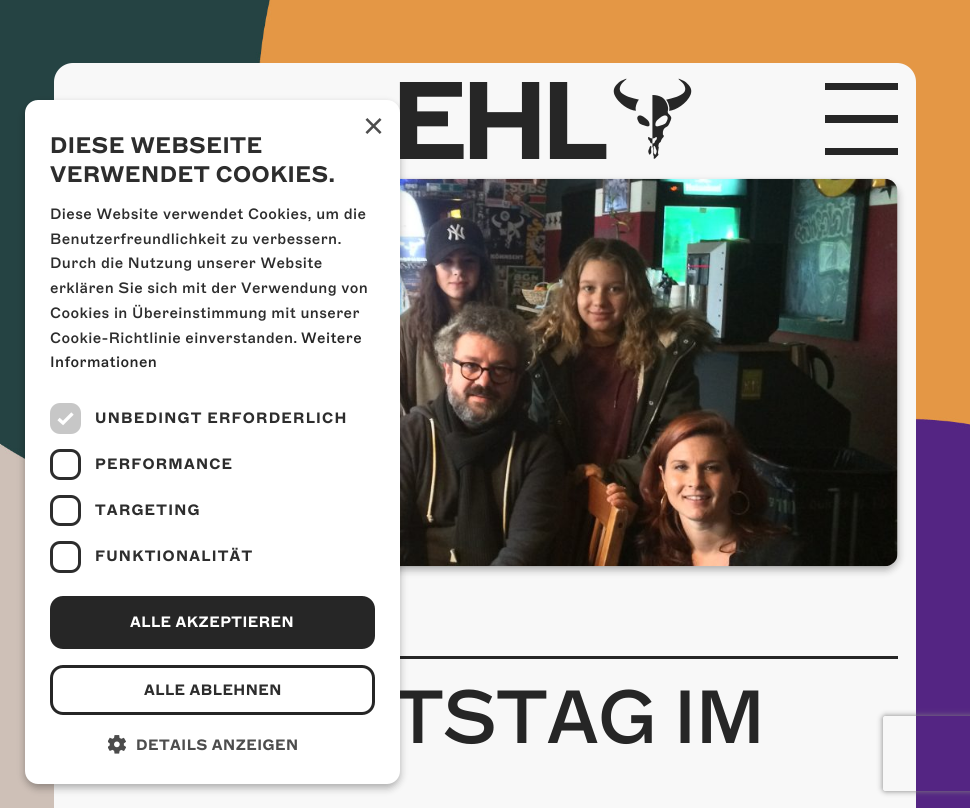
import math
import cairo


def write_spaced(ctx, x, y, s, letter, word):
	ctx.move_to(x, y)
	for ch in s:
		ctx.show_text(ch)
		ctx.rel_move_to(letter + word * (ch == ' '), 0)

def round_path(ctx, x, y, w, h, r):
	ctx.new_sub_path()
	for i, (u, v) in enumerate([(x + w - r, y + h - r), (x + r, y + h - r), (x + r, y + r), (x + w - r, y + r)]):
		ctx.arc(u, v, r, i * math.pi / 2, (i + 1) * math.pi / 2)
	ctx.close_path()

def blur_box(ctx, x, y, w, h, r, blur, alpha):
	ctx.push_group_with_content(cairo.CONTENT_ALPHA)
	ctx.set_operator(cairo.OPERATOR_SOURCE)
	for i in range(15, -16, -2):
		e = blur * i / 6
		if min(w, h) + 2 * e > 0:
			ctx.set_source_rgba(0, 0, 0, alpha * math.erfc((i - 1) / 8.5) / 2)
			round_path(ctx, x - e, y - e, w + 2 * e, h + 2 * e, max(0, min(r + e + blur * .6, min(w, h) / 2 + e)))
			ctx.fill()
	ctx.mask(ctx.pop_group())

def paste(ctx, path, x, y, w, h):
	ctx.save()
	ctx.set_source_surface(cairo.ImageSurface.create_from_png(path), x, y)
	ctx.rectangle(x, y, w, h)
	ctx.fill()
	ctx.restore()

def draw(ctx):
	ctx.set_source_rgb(1, 1, 1)
	ctx.paint()
	paste(ctx, 'media/1.png', 0, 0, 970, 808)
	ctx.set_source_rgb(0.969, 0.969, 0.969)
	ctx.new_path()
	ctx.move_to(73, 63)
	ctx.line_to(897, 63)
	ctx.curve_to(907.5, 63, 916, 71.5, 916, 82)
	ctx.line_to(916, 179)
	ctx.line_to(54, 179)
	ctx.line_to(54, 82)
	ctx.curve_to(54, 71.5, 62.5, 63, 73, 63)
	ctx.close_path()
	ctx.fill()
	ctx.rectangle(54, 179, 862, 629)
	ctx.fill()
	ctx.set_source_rgb(0, 0, 0)
	blur_box(ctx, 73, 183, 825, 387, 13, 4, 0.3)
	paste(ctx, 'media/4.png', 400, 178, 498, 389)
	ctx.set_source_rgb(0.149, 0.149, 0.149)
	ctx.rectangle(400, 656, 498, 3)
	ctx.fill()
	ctx.set_source_rgb(0, 0, 0)
	blur_box(ctx, 25, 104, 375, 684, 13, 4, 0.3)
	ctx.select_font_face('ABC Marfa', cairo.FONT_SLANT_NORMAL, cairo.FONT_WEIGHT_BOLD)
	ctx.set_font_size(110)
	ctx.set_source_rgb(0.149, 0.149, 0.149)
	write_spaced(ctx, 391, 159, 'EHL', -7, 0)
	ctx.select_font_face('ABC Marfa Medium')
	ctx.set_font_size(75)
	write_spaced(ctx, 392, 743, 'TSTAG IM', -1.25, 0)
	ctx.set_source_rgb(1, 1, 1)
	round_path(ctx, 25, 100, 375, 684, 13)
	ctx.fill()
	ctx.select_font_face('Liberation Sans')
	ctx.set_font_size(36)
	ctx.set_source_rgb(0.302, 0.302, 0.302)
	ctx.move_to(363, 138)
	ctx.show_text('×')
	ctx.select_font_face('ABC Marfa', cairo.FONT_SLANT_NORMAL, cairo.FONT_WEIGHT_BOLD)
	ctx.set_font_size(22.5)
	ctx.set_source_rgb(0.176, 0.176, 0.176)
	write_spaced(ctx, 50, 153, 'DIESE WEBSEITE', 0.5, 0)
	write_spaced(ctx, 50, 182, 'VERWENDET COOKIES.', 0.5, 0)
	ctx.select_font_face('ABC Marfa Medium')
	ctx.set_font_size(15)
	for x, y, s in [
		(50, 219, 'Diese Website verwendet Cookies, um die'),
		(50, 244, 'Benutzerfreundlichkeit zu verbessern.'),
		(50, 268, 'Durch die Nutzung unserer Website'),
		(50, 293, 'erklären Sie sich mit der Verwendung von'),
		(50, 318, 'Cookies in Übereinstimmung mit unserer'),
		(50, 343, 'Cookie-Richtlinie einverstanden.'),
	]:
		write_spaced(ctx, x, y, s, 0.4, 0)
	ctx.set_source_rgb(0.149, 0.149, 0.149)
	write_spaced(ctx, 301, 343, 'Weitere', 0.4, 0)
	write_spaced(ctx, 50, 367, 'Informationen', 0.4, 0)
	ctx.set_source_rgb(0.78, 0.78, 0.78)
	round_path(ctx, 50, 403, 31, 31, 10)
	ctx.fill()
	ctx.new_path()
	ctx.move_to(58.5, 419)
	ctx.line_to(63, 423)
	ctx.line_to(72.5, 413.5)
	ctx.set_source_rgb(1, 1, 1)
	ctx.set_line_width(3.3)
	ctx.stroke()
	ctx.select_font_face('ABC Marfa', cairo.FONT_SLANT_NORMAL, cairo.FONT_WEIGHT_BOLD)
	ctx.set_source_rgb(0.176, 0.176, 0.176)
	write_spaced(ctx, 95, 423, 'UNBEDINGT ERFORDERLICH', 1.25, 0)
	round_path(ctx, 51.5, 450.5, 28, 28, 8.5)
	ctx.set_line_width(3)
	ctx.stroke()
	write_spaced(ctx, 95, 469, 'PERFORMANCE', 1.25, 0)
	round_path(ctx, 51.5, 496.5, 28, 28, 8.5)
	ctx.stroke()
	write_spaced(ctx, 95, 515, 'TARGETING', 1.25, 0)
	round_path(ctx, 51.5, 542.5, 28, 29, 8.5)
	ctx.stroke()
	write_spaced(ctx, 95, 561, 'FUNKTIONALITÄT', 1.25, 0)
	ctx.set_source_rgb(0.149, 0.149, 0.149)
	round_path(ctx, 51.5, 597.5, 322, 50, 11.5)
	ctx.fill_preserve()
	ctx.stroke()
	ctx.set_source_rgb(1, 1, 1)
	write_spaced(ctx, 130, 627, 'ALLE AKZEPTIEREN', 0.5, 0)
	round_path(ctx, 51.5, 666.5, 322, 47, 11.5)
	ctx.set_source_rgb(0.149, 0.149, 0.149)
	ctx.stroke()
	ctx.set_source_rgb(0.176, 0.176, 0.176)
	write_spaced(ctx, 144, 695, 'ALLE ABLEHNEN', 0.5, 0)
	paste(ctx, 'media/2.png', 108, 735, 18, 19)
	ctx.set_source_rgb(0.302, 0.302, 0.302)
	write_spaced(ctx, 136, 750, 'DETAILS ANZEIGEN', 0.5, 0)
	paste(ctx, 'media/3.png', 613, 78, 79, 81)
	ctx.set_source_rgb(0.149, 0.149, 0.149)
	ctx.rectangle(825, 115, 73, 8)
	ctx.rectangle(825, 83, 73, 7)
	ctx.rectangle(825, 148, 73, 7)
	ctx.fill()
	ctx.save()
	ctx.set_fill_rule(cairo.FILL_RULE_EVEN_ODD)
	ctx.new_path()
	ctx.move_to(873, 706)
	ctx.line_to(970, 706)
	ctx.line_to(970, 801)
	ctx.line_to(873, 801)
	ctx.close_path()
	ctx.move_to(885.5, 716)
	ctx.line_to(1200.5, 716)
	ctx.curve_to(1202, 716, 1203, 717, 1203, 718.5)
	ctx.line_to(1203, 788.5)
	ctx.curve_to(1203, 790, 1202, 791, 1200.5, 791)
	ctx.line_to(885.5, 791)
	ctx.curve_to(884, 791, 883, 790, 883, 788.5)
	ctx.line_to(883, 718.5)
	ctx.curve_to(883, 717, 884, 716, 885.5, 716)
	ctx.close_path()
	ctx.clip()
	ctx.set_source_rgb(0.502, 0.502, 0.502)
	blur_box(ctx, 883, 716, 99, 75, 2.5, 3, 1)
	ctx.restore()


surface = cairo.ImageSurface(cairo.FORMAT_RGB24, 970, 808)
ctx = cairo.Context(surface)
options = cairo.FontOptions()
options.set_hint_metrics(cairo.HINT_METRICS_OFF)
options.set_hint_style(cairo.HINT_STYLE_NONE)
ctx.set_font_options(options)
ctx.set_miter_limit(4)
draw(ctx)
surface.write_to_png('image.png')
